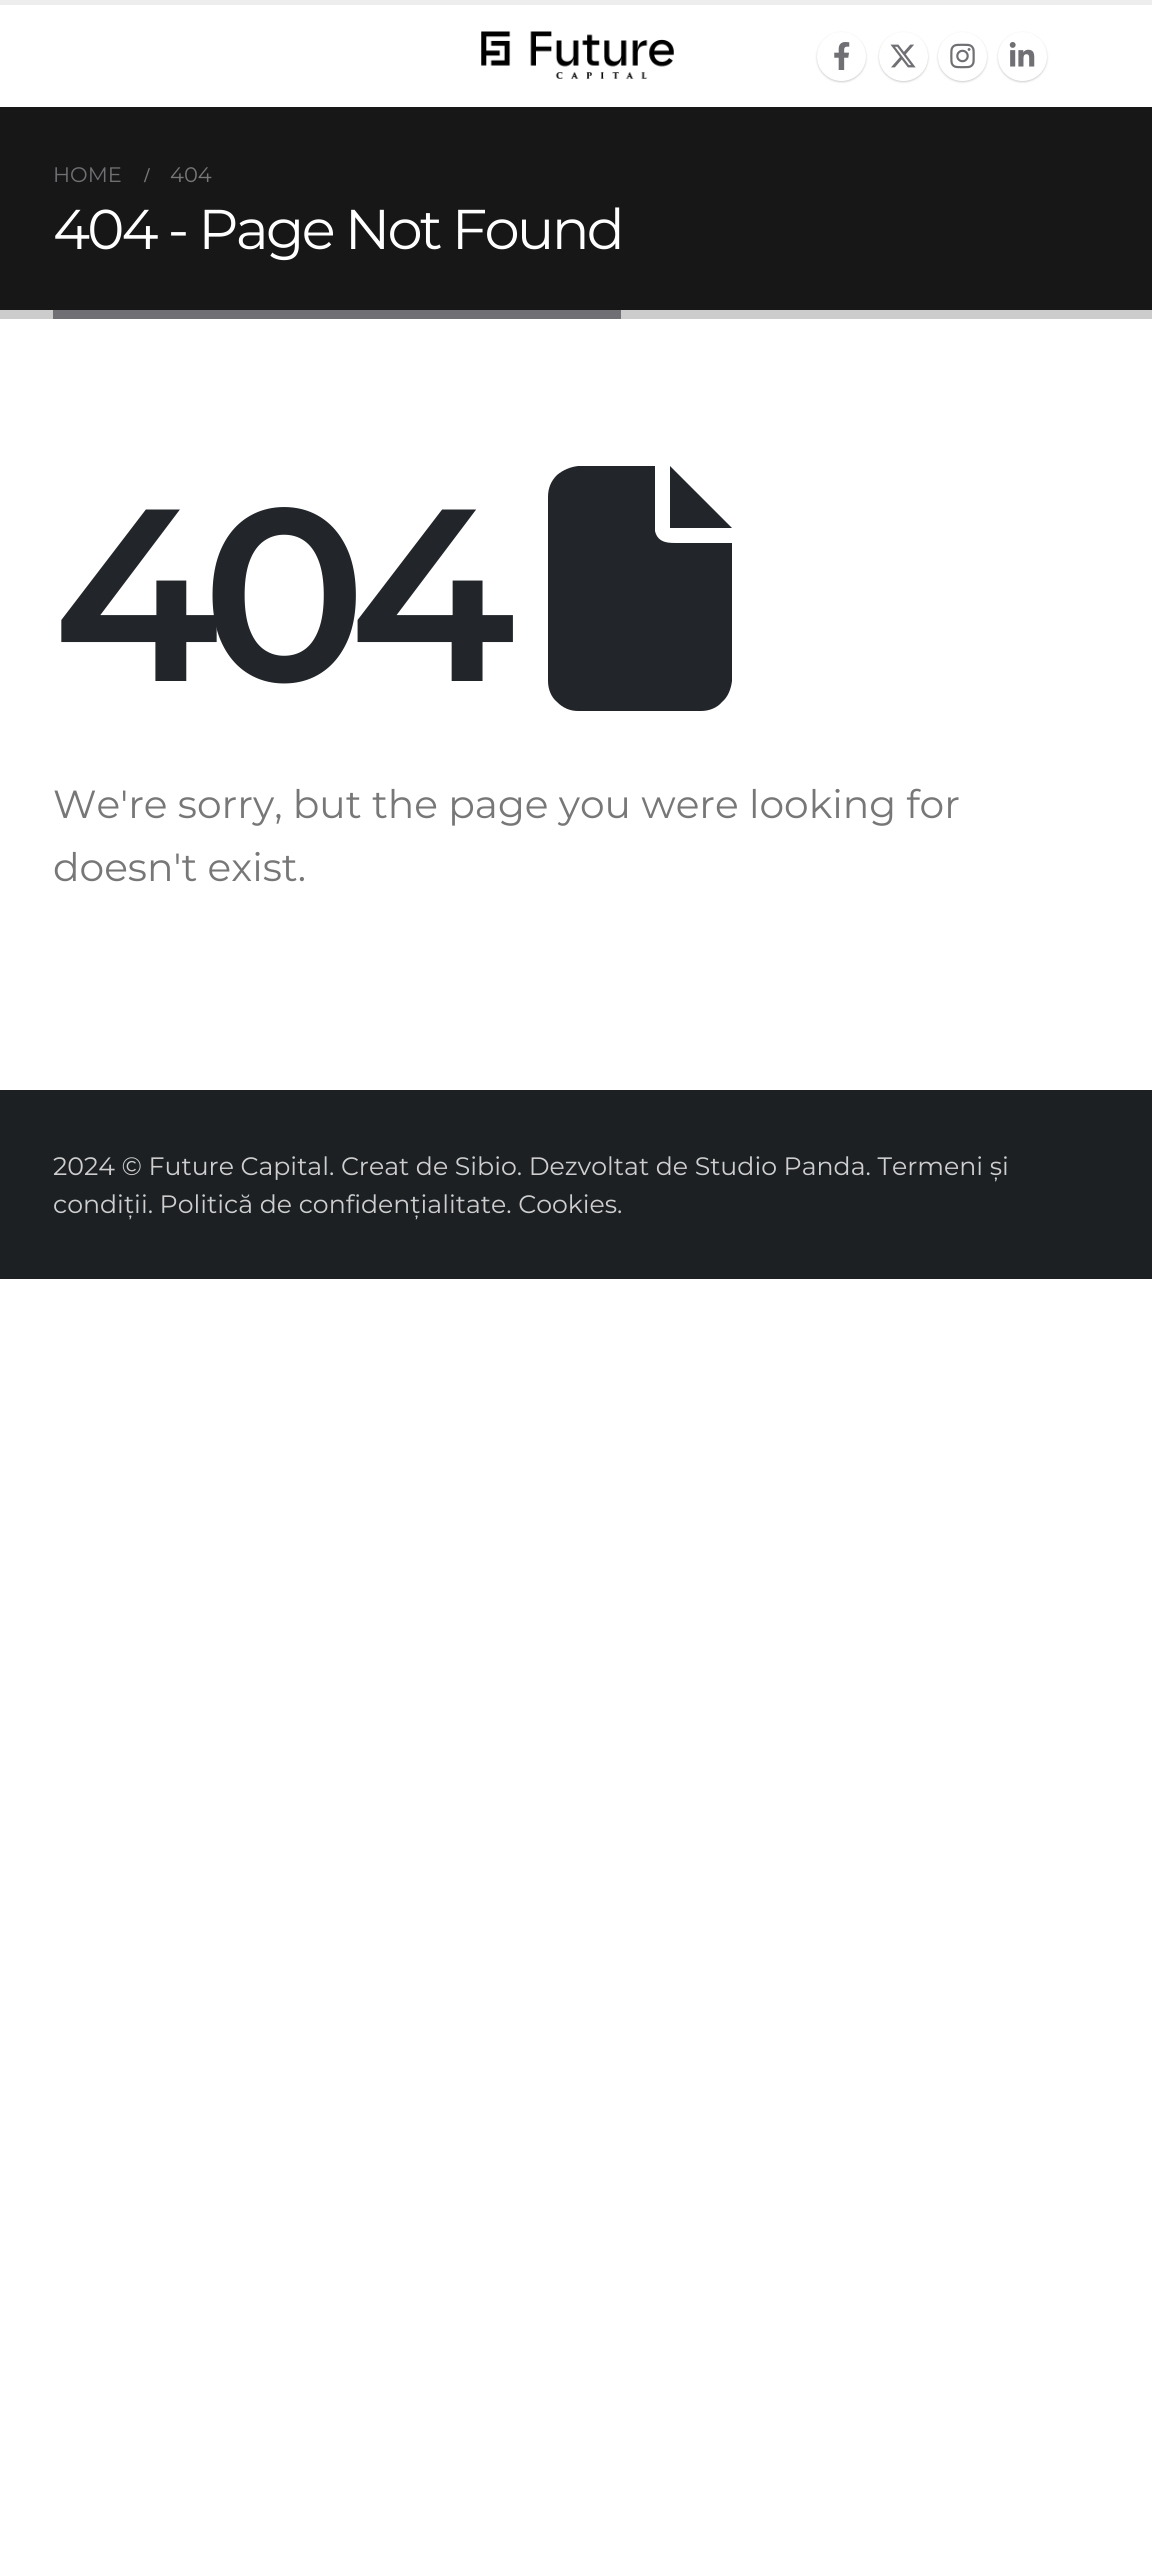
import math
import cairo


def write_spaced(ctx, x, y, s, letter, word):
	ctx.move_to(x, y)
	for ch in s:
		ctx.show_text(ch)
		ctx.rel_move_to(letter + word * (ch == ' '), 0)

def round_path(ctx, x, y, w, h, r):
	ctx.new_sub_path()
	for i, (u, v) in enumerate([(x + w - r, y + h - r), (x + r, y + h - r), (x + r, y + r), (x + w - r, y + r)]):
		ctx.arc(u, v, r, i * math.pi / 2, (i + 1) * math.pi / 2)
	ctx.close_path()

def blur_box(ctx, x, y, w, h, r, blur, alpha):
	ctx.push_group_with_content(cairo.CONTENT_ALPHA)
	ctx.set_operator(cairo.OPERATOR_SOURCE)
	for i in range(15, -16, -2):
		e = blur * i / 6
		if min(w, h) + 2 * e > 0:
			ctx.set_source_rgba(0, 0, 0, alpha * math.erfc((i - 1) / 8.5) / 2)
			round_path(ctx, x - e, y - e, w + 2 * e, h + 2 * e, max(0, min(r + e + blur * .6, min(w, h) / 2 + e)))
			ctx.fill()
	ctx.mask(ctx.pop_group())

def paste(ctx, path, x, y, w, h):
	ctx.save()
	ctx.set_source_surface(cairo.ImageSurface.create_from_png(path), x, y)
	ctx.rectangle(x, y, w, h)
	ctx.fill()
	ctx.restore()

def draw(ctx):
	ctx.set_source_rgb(1, 1, 1)
	ctx.paint()
	ctx.set_source_rgb(0.929, 0.929, 0.929)
	ctx.rectangle(0, 0, 1152, 5)
	ctx.fill()
	paste(ctx, 'media/1.png', 481, 31, 193, 48)
	ctx.set_source_rgb(0, 0, 0)
	blur_box(ctx, 817, 33, 49, 49, 24.5, 1, 0.2)
	ctx.set_source_rgb(1, 1, 1)
	ctx.arc(841.5, 56.5, 24.5, 0, 2 * math.pi)
	ctx.fill()
	paste(ctx, 'media/2.png', 834, 42, 16, 28)
	ctx.set_source_rgb(0, 0, 0)
	blur_box(ctx, 879, 33, 49, 49, 24.5, 1, 0.2)
	ctx.set_source_rgb(1, 1, 1)
	ctx.arc(903.5, 56.5, 24.5, 0, 2 * math.pi)
	ctx.fill()
	paste(ctx, 'media/3.png', 890, 44, 26, 24)
	ctx.set_source_rgb(0, 0, 0)
	blur_box(ctx, 938, 33, 49, 49, 24.5, 1, 0.2)
	ctx.set_source_rgb(1, 1, 1)
	ctx.arc(962.5, 56.5, 24.5, 0, 2 * math.pi)
	ctx.fill()
	paste(ctx, 'media/4.png', 950, 43, 25, 26)
	ctx.set_source_rgb(0, 0, 0)
	blur_box(ctx, 998, 33, 49, 49, 24.5, 1, 0.2)
	ctx.set_source_rgb(1, 1, 1)
	ctx.arc(1022.5, 56.5, 24.5, 0, 2 * math.pi)
	ctx.fill()
	paste(ctx, 'media/5.png', 1009, 42, 26, 25)
	ctx.set_source_rgb(0.09, 0.09, 0.09)
	ctx.rectangle(0, 107, 1152, 203)
	ctx.fill()
	ctx.set_source_rgb(0.8, 0.8, 0.8)
	ctx.rectangle(0, 310, 1152, 9)
	ctx.fill()
	ctx.select_font_face('Montserrat')
	ctx.set_font_size(21)
	ctx.set_source_rgb(0.439, 0.435, 0.451)
	ctx.move_to(53, 182)
	ctx.show_text('HOME')
	ctx.select_font_face('Liberation Serif', cairo.FONT_SLANT_NORMAL, cairo.FONT_WEIGHT_BOLD)
	ctx.set_source_rgb(0.467, 0.467, 0.467)
	ctx.move_to(144, 182)
	ctx.show_text('/')
	ctx.select_font_face('Montserrat')
	ctx.move_to(170, 182)
	ctx.show_text('404')
	ctx.set_font_size(56)
	ctx.set_source_rgb(1, 1, 1)
	write_spaced(ctx, 53, 249, '404 - Page Not Found', -2.75, 0)
	ctx.set_source_rgb(0.439, 0.435, 0.451)
	ctx.rectangle(53, 310, 568, 9)
	ctx.fill()
	ctx.select_font_face('Montserrat SemiBold')
	ctx.set_font_size(245)
	ctx.set_source_rgb(0.133, 0.145, 0.161)
	write_spaced(ctx, 53, 681, '404', -17.5, 0)
	ctx.new_path()
	ctx.move_to(548, 497)
	ctx.curve_to(548, 488, 551, 481, 557, 475)
	ctx.curve_to(563, 470, 570, 467, 578, 466)
	ctx.line_to(655, 466)
	ctx.line_to(655, 531)
	ctx.curve_to(658, 544, 670, 543, 680, 543)
	ctx.line_to(732, 543)
	ctx.line_to(732, 681)
	ctx.curve_to(731, 689, 728, 697, 722, 702)
	ctx.curve_to(717, 708, 709, 711, 701, 711)
	ctx.line_to(578, 711)
	ctx.curve_to(570, 711, 563, 708, 557, 702)
	ctx.curve_to(551, 697, 548, 689, 548, 681)
	ctx.close_path()
	ctx.move_to(732, 528)
	ctx.line_to(670, 528)
	ctx.line_to(670, 466)
	ctx.close_path()
	ctx.fill()
	ctx.select_font_face('Montserrat')
	ctx.set_font_size(39.2)
	ctx.set_source_rgb(0.467, 0.467, 0.467)
	ctx.move_to(53, 818)
	ctx.show_text('We\'re sorry, but the page you were looking for')
	ctx.move_to(53, 881)
	ctx.show_text('doesn\'t exist.')
	ctx.set_source_rgb(0.11, 0.125, 0.137)
	ctx.rectangle(0, 1090, 1152, 189)
	ctx.fill()
	ctx.set_font_size(25.2)
	ctx.set_source_rgb(0.808, 0.808, 0.808)
	ctx.move_to(53, 1175)
	ctx.show_text('2024 © Future Capital. Creat de Sibio. Dezvoltat de Studio Panda. Termeni și')
	ctx.move_to(53, 1213)
	ctx.show_text('condiții. Politică de confidențialitate. Cookies.')


surface = cairo.ImageSurface(cairo.FORMAT_RGB24, 1152, 2556)
ctx = cairo.Context(surface)
options = cairo.FontOptions()
options.set_hint_metrics(cairo.HINT_METRICS_OFF)
options.set_hint_style(cairo.HINT_STYLE_NONE)
ctx.set_font_options(options)
ctx.set_miter_limit(4)
draw(ctx)
surface.write_to_png('image.png')
